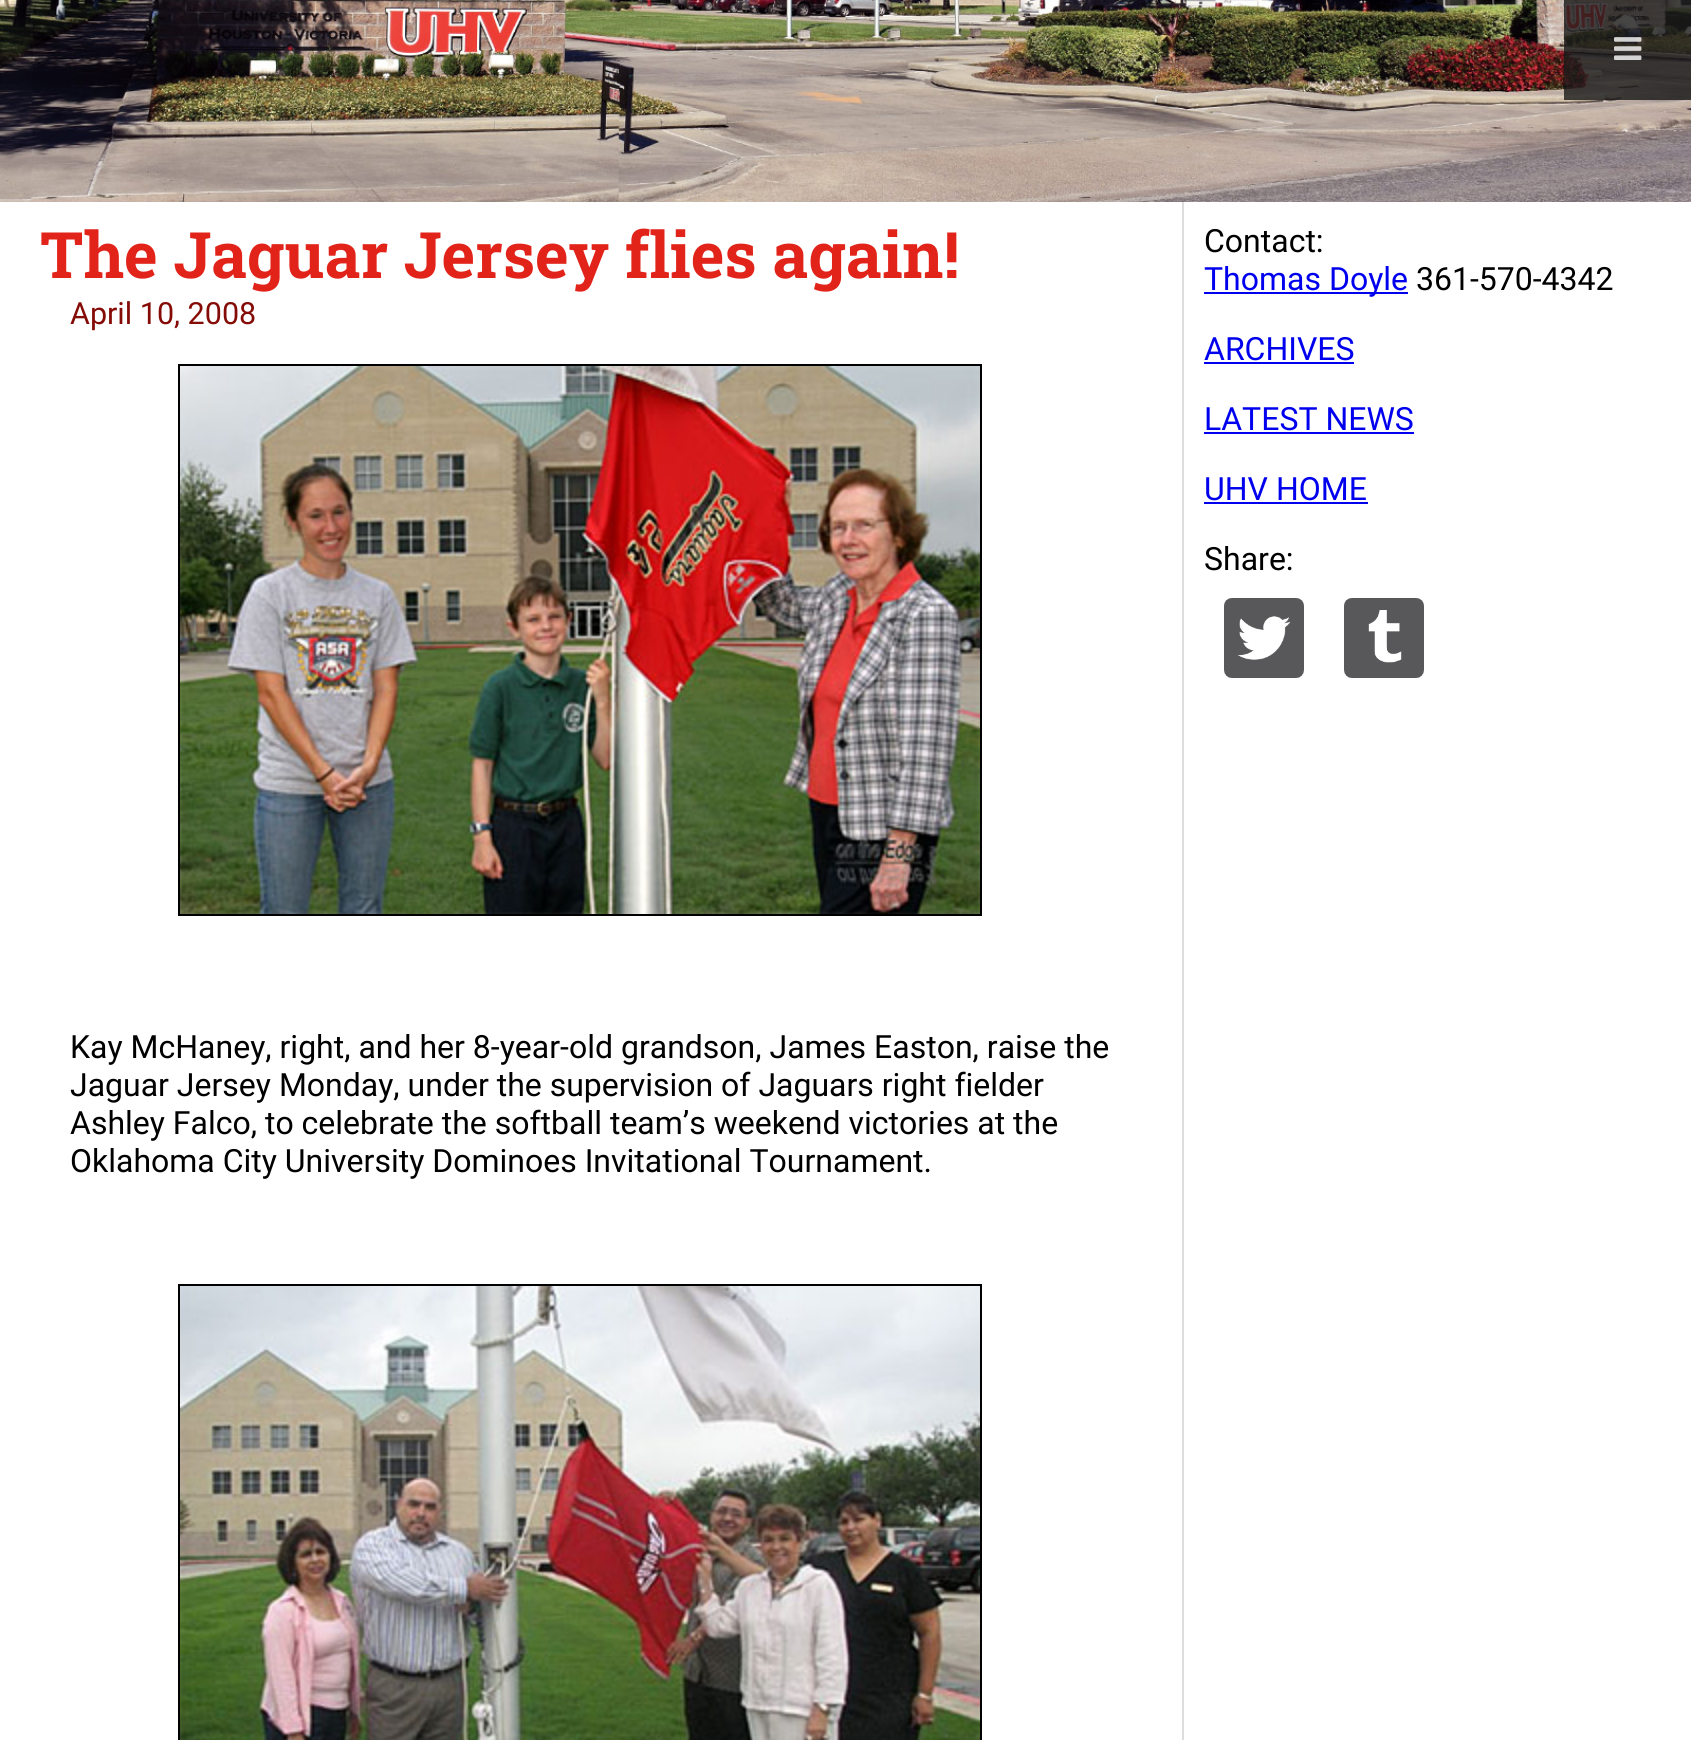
import math
import cairo


def paste(ctx, path, x, y, w, h):
	ctx.save()
	ctx.set_source_surface(cairo.ImageSurface.create_from_png(path), x, y)
	ctx.rectangle(x, y, w, h)
	ctx.fill()
	ctx.restore()

def draw(ctx):
	ctx.set_source_rgb(1, 1, 1)
	ctx.paint()
	paste(ctx, 'media/2.png', 0, 0, 1691, 202)
	ctx.set_source_rgba(0.102, 0.102, 0.102, 0.8)
	ctx.rectangle(1564, 0, 127, 100)
	ctx.fill()
	paste(ctx, 'media/1.png', 1614, 37, 28, 23)
	ctx.set_source_rgb(0.867, 0.867, 0.867)
	ctx.rectangle(1182, 202, 2, 1538)
	ctx.fill()
	ctx.select_font_face('Roboto Slab', cairo.FONT_SLANT_NORMAL, cairo.FONT_WEIGHT_BOLD)
	ctx.set_font_size(64)
	ctx.set_source_rgb(0.886, 0.137, 0.102)
	ctx.move_to(40, 278)
	ctx.show_text('The Jaguar Jersey flies again!')
	ctx.select_font_face('Roboto')
	ctx.set_font_size(30.5)
	ctx.set_source_rgb(0.522, 0.047, 0.024)
	ctx.move_to(70, 324)
	ctx.show_text('April 10, 2008')
	ctx.rectangle(179, 365, 802, 550)
	ctx.set_source_rgb(0, 0, 0)
	ctx.stroke()
	paste(ctx, 'media/3.png', 180, 366, 800, 548)
	ctx.set_font_size(32)
	for x, y, s in [
		(70, 1058, 'Kay McHaney, right, and her 8-year-old grandson, James Easton, raise the'),
		(70, 1096, 'Jaguar Jersey Monday, under the supervision of Jaguars right fielder'),
		(70, 1134, 'Ashley Falco, to celebrate the softball team’s weekend victories at the'),
		(70, 1172, 'Oklahoma City University Dominoes Invitational Tournament.'),
	]:
		ctx.move_to(x, y)
		ctx.show_text(s)
	ctx.rectangle(179, 1285, 802, 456)
	ctx.stroke()
	paste(ctx, 'media/4.png', 180, 1286, 800, 454)
	ctx.move_to(1204, 252)
	ctx.show_text('Contact:')
	ctx.set_source_rgb(0, 0, 0.933)
	ctx.rectangle(1204, 292, 204, 2)
	ctx.fill()
	ctx.move_to(1204, 290)
	ctx.show_text('Thomas Doyle')
	ctx.set_source_rgb(0, 0, 0)
	ctx.move_to(1416, 290)
	ctx.show_text('361-570-4342')
	ctx.set_source_rgb(0, 0, 0.933)
	ctx.move_to(1204, 360)
	ctx.show_text('ARCHIVES')
	ctx.rectangle(1204, 362, 150, 2)
	ctx.fill()
	ctx.move_to(1204, 430)
	ctx.show_text('LATEST NEWS')
	ctx.rectangle(1204, 432, 210, 2)
	ctx.fill()
	ctx.move_to(1204, 500)
	ctx.show_text('UHV HOME')
	ctx.rectangle(1204, 502, 164, 2)
	ctx.fill()
	ctx.set_source_rgb(0, 0, 0)
	ctx.move_to(1204, 570)
	ctx.show_text('Share:')
	paste(ctx, 'media/5.png', 1224, 598, 80, 80)
	paste(ctx, 'media/6.png', 1344, 598, 80, 80)


surface = cairo.ImageSurface(cairo.FORMAT_RGB24, 1691, 1740)
ctx = cairo.Context(surface)
options = cairo.FontOptions()
options.set_hint_metrics(cairo.HINT_METRICS_OFF)
options.set_hint_style(cairo.HINT_STYLE_NONE)
ctx.set_font_options(options)
ctx.set_miter_limit(4)
draw(ctx)
surface.write_to_png('image.png')
